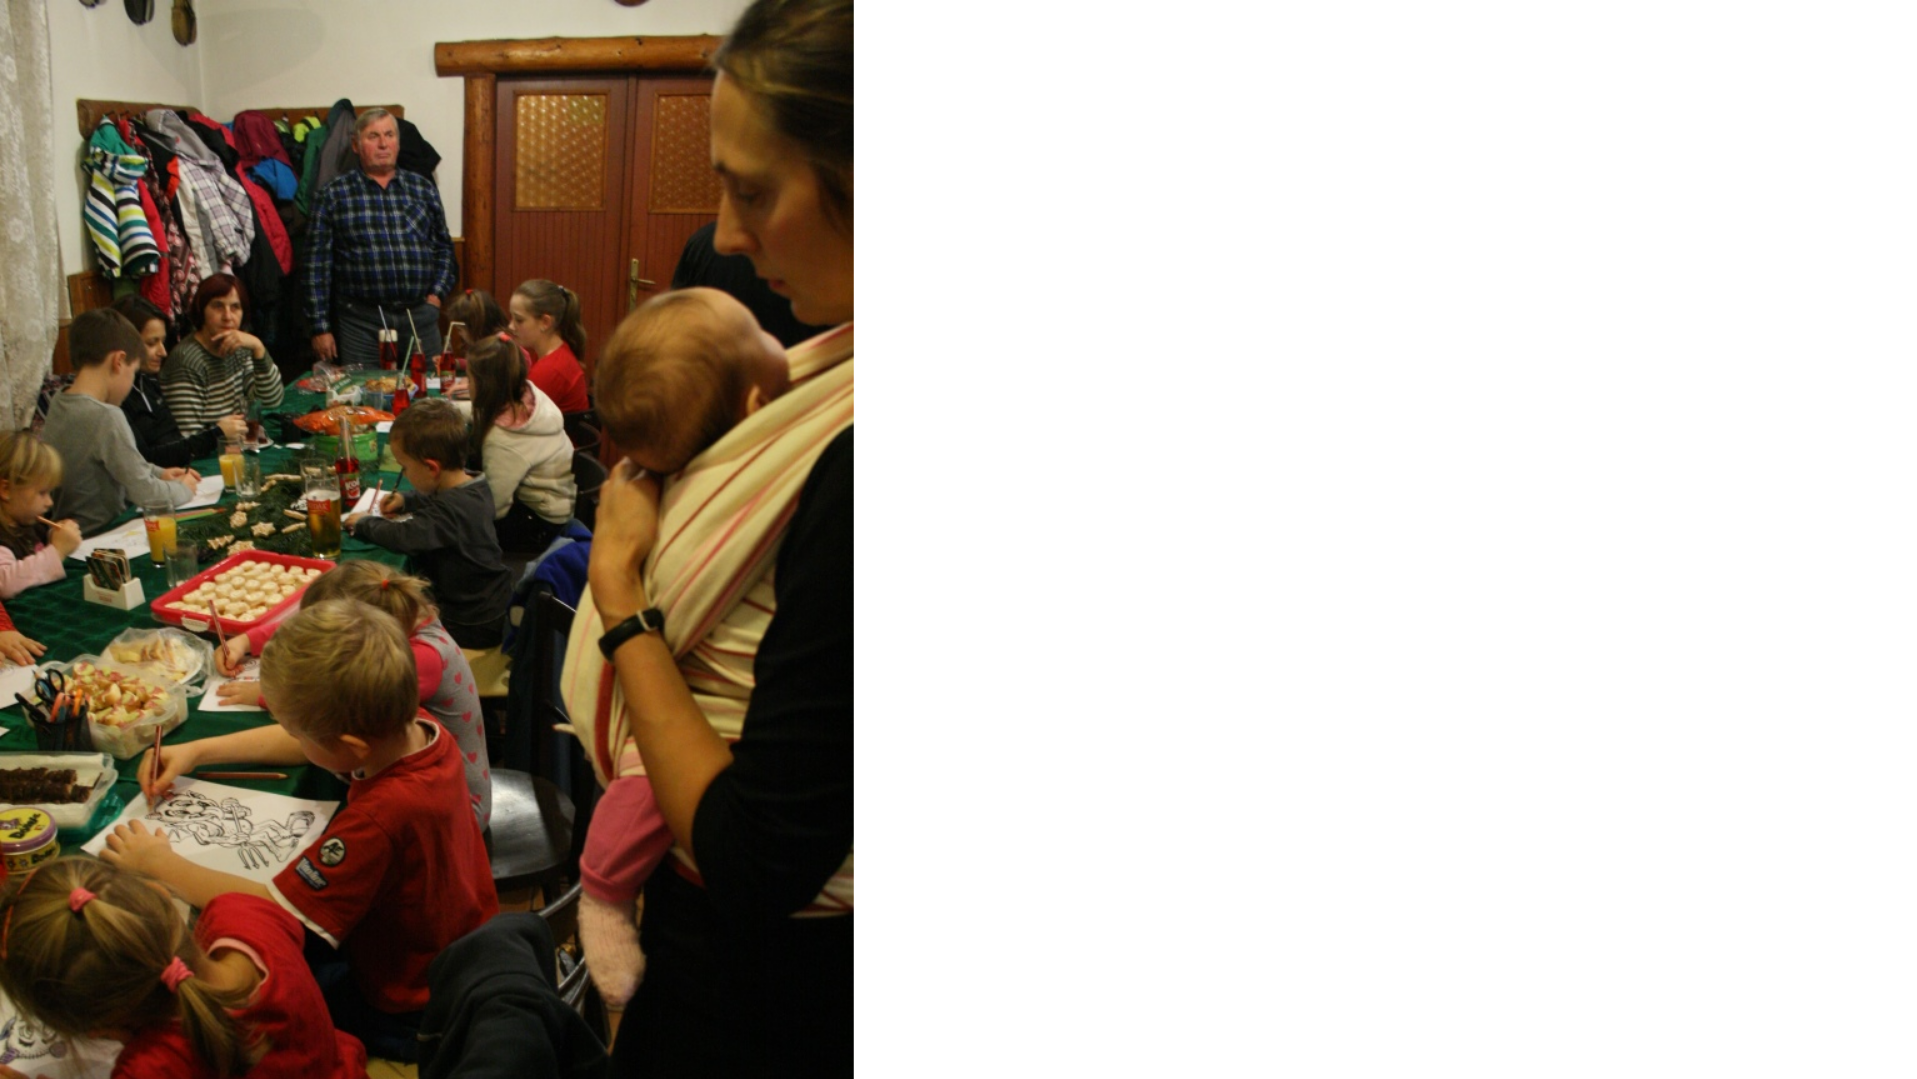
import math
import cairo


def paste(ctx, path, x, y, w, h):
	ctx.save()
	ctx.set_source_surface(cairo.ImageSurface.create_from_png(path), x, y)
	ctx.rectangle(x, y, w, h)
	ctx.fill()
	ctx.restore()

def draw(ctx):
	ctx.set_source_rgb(1, 1, 1)
	ctx.paint()
	paste(ctx, 'media/1.png', 0, 0, 854, 1079)


surface = cairo.ImageSurface(cairo.FORMAT_RGB24, 1917, 1079)
ctx = cairo.Context(surface)
options = cairo.FontOptions()
options.set_hint_metrics(cairo.HINT_METRICS_OFF)
options.set_hint_style(cairo.HINT_STYLE_NONE)
ctx.set_font_options(options)
ctx.set_miter_limit(4)
draw(ctx)
surface.write_to_png('image.png')
